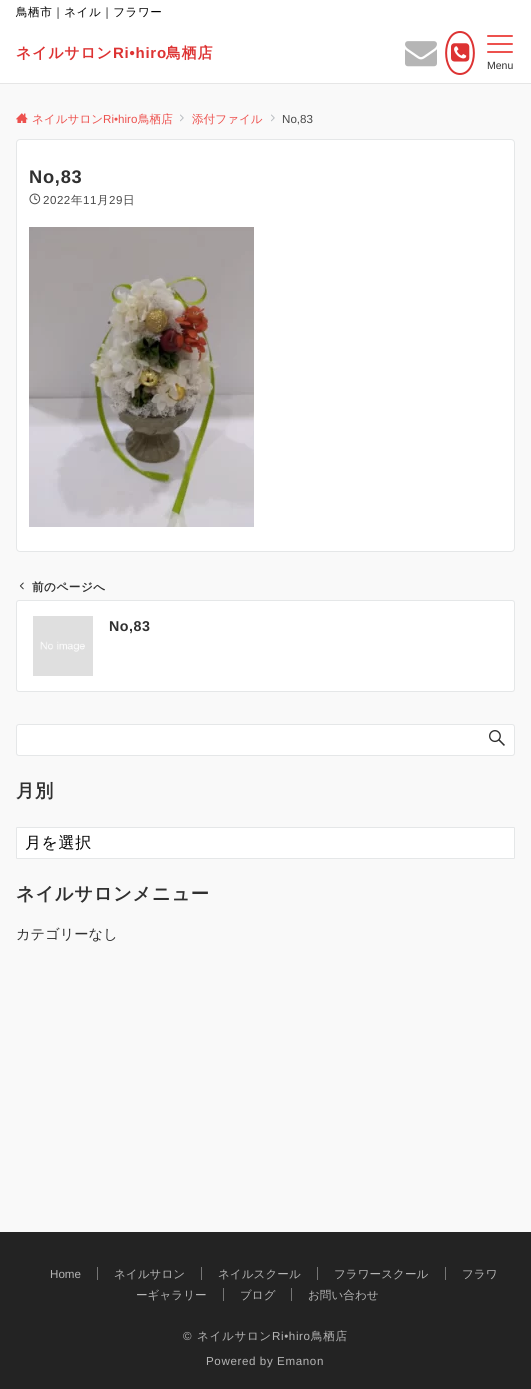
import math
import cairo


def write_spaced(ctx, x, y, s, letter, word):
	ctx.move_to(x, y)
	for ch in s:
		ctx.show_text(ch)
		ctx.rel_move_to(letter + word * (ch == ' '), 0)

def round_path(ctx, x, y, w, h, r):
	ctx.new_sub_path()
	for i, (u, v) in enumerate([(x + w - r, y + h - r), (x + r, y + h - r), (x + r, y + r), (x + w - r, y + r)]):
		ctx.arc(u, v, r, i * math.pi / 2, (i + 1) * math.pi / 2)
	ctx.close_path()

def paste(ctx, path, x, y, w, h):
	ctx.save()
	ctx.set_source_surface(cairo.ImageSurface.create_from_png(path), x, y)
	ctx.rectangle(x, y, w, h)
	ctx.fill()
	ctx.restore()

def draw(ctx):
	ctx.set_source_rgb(0.973, 0.973, 0.973)
	ctx.paint()
	ctx.set_source_rgb(1, 1, 1)
	ctx.rectangle(0, 0, 531, 83)
	ctx.fill()
	ctx.select_font_face('WenQuanYi Zen Hei Medium')
	ctx.set_font_size(11.6)
	ctx.set_source_rgb(0, 0, 0)
	write_spaced(ctx, 16, 16, '鳥栖市｜ネイル｜フラワー', 0.5, 0)
	ctx.set_source_rgb(0.902, 0.902, 0.902)
	ctx.rectangle(0, 83, 531, 1)
	ctx.fill()
	ctx.select_font_face('WenQuanYi Zen Hei', cairo.FONT_SLANT_NORMAL, cairo.FONT_WEIGHT_BOLD)
	ctx.set_font_size(15)
	ctx.set_source_rgb(0.867, 0.2, 0.2)
	write_spaced(ctx, 16, 58, 'ネイルサロン', 0.75, 0)
	ctx.select_font_face('Liberation Sans', cairo.FONT_SLANT_NORMAL, cairo.FONT_WEIGHT_BOLD)
	write_spaced(ctx, 113, 58, 'Ri•hiro', 0.75, 0)
	ctx.select_font_face('WenQuanYi Zen Hei', cairo.FONT_SLANT_NORMAL, cairo.FONT_WEIGHT_BOLD)
	write_spaced(ctx, 166, 58, '鳥栖店', 0.75, 0)
	paste(ctx, 'media/1.png', 405, 41, 32, 26)
	ctx.new_path()
	ctx.move_to(460, 32)
	ctx.curve_to(478.5, 32, 478.5, 74, 460, 74)
	ctx.curve_to(441.5, 74, 441.5, 32, 460, 32)
	ctx.close_path()
	ctx.stroke()
	paste(ctx, 'media/2.png', 451, 43, 19, 19)
	ctx.set_source_rgb(0.929, 0.318, 0.306)
	round_path(ctx, 487, 35, 26, 2, 1)
	ctx.fill()
	round_path(ctx, 487, 43, 26, 2, 1)
	ctx.fill()
	round_path(ctx, 487, 51, 26, 2, 1)
	ctx.fill()
	ctx.select_font_face('Liberation Sans')
	ctx.set_font_size(10.5)
	ctx.set_source_rgb(0.188, 0.188, 0.188)
	ctx.move_to(487, 69)
	ctx.show_text('Menu')
	paste(ctx, 'media/3.png', 16, 113, 12, 10)
	ctx.select_font_face('WenQuanYi Zen Hei Medium')
	ctx.set_font_size(11.6)
	ctx.set_source_rgb(0.929, 0.318, 0.306)
	ctx.move_to(32, 123)
	ctx.show_text('ネイルサロン')
	ctx.select_font_face('Liberation Sans')
	ctx.move_to(103, 123)
	ctx.show_text('Ri•hiro')
	ctx.select_font_face('WenQuanYi Zen Hei Medium')
	ctx.move_to(138, 123)
	ctx.show_text('鳥栖店')
	paste(ctx, 'media/4.png', 180, 114, 4, 8)
	ctx.move_to(192, 123)
	ctx.show_text('添付ファイル')
	paste(ctx, 'media/4.png', 271, 114, 4, 8)
	ctx.select_font_face('Liberation Sans')
	ctx.set_source_rgb(0.282, 0.282, 0.282)
	ctx.move_to(282, 123)
	ctx.show_text('No,83')
	ctx.set_source_rgb(1, 1, 1)
	round_path(ctx, 16.5, 139.5, 498, 412, 3.5)
	ctx.fill_preserve()
	ctx.set_source_rgb(0.898, 0.906, 0.91)
	ctx.set_line_width(1)
	ctx.stroke()
	ctx.select_font_face('Liberation Sans', cairo.FONT_SLANT_NORMAL, cairo.FONT_WEIGHT_BOLD)
	ctx.set_font_size(18.25)
	ctx.set_source_rgb(0.188, 0.188, 0.188)
	write_spaced(ctx, 29, 183, 'No,83', 0.75, 0)
	paste(ctx, 'media/5.png', 29, 193, 12, 12)
	ctx.select_font_face('Liberation Sans')
	ctx.set_font_size(11.6)
	ctx.set_source_rgb(0.282, 0.282, 0.282)
	write_spaced(ctx, 43, 204, '2022', 0.5, 0)
	ctx.select_font_face('WenQuanYi Zen Hei Medium')
	write_spaced(ctx, 71, 204, '年', 0.5, 0)
	ctx.select_font_face('Liberation Sans')
	write_spaced(ctx, 83, 204, '11', 0.5, 0)
	ctx.select_font_face('WenQuanYi Zen Hei Medium')
	write_spaced(ctx, 97, 204, '月', 0.5, 0)
	ctx.select_font_face('Liberation Sans')
	write_spaced(ctx, 109, 204, '29', 0.5, 0)
	ctx.select_font_face('WenQuanYi Zen Hei Medium')
	write_spaced(ctx, 123, 204, '日', 0.5, 0)
	paste(ctx, 'media/6.png', 29, 227, 225, 300)
	ctx.set_source_rgb(1, 1, 1)
	round_path(ctx, 16.5, 600.5, 498, 91, 2.5)
	ctx.fill_preserve()
	ctx.set_source_rgb(0.898, 0.906, 0.91)
	ctx.stroke()
	paste(ctx, 'media/7.png', 19, 582, 5, 8)
	ctx.select_font_face('WenQuanYi Zen Hei', cairo.FONT_SLANT_NORMAL, cairo.FONT_WEIGHT_BOLD)
	ctx.set_source_rgb(0.188, 0.188, 0.188)
	write_spaced(ctx, 32, 591, '前のページへ', 0.5, 0)
	paste(ctx, 'media/8.png', 33, 616, 60, 60)
	ctx.select_font_face('Liberation Sans', cairo.FONT_SLANT_NORMAL, cairo.FONT_WEIGHT_BOLD)
	ctx.set_font_size(14.25)
	write_spaced(ctx, 109, 631, 'No,83', 0.5, 0)
	ctx.set_source_rgb(1, 1, 1)
	round_path(ctx, 16.5, 724.5, 498, 31, 2.5)
	ctx.fill_preserve()
	ctx.set_source_rgb(0.898, 0.906, 0.91)
	ctx.stroke()
	paste(ctx, 'media/9.png', 489, 730, 16, 16)
	ctx.select_font_face('WenQuanYi Zen Hei', cairo.FONT_SLANT_NORMAL, cairo.FONT_WEIGHT_BOLD)
	ctx.set_font_size(18.25)
	ctx.set_source_rgb(0.188, 0.188, 0.188)
	write_spaced(ctx, 16, 797, '月別', 0.75, 0)
	ctx.set_source_rgb(1, 1, 1)
	round_path(ctx, 16.5, 827.5, 498, 31, 0.5)
	ctx.fill_preserve()
	ctx.set_source_rgb(0.898, 0.906, 0.91)
	ctx.stroke()
	ctx.select_font_face('WenQuanYi Zen Hei Medium')
	ctx.set_font_size(16)
	ctx.set_source_rgb(0, 0, 0)
	write_spaced(ctx, 25, 848, '月を選択', 0.6, 0)
	ctx.select_font_face('WenQuanYi Zen Hei', cairo.FONT_SLANT_NORMAL, cairo.FONT_WEIGHT_BOLD)
	ctx.set_font_size(18.25)
	ctx.set_source_rgb(0.188, 0.188, 0.188)
	write_spaced(ctx, 16, 900, 'ネイルサロンメニュー', 0.75, 0)
	ctx.select_font_face('WenQuanYi Zen Hei Medium')
	ctx.set_font_size(14.25)
	ctx.move_to(16, 939)
	ctx.show_text('カテゴリーなし')
	ctx.set_source_rgb(0.137, 0.137, 0.137)
	ctx.rectangle(0, 1232, 531, 157)
	ctx.fill()
	ctx.select_font_face('Liberation Sans')
	ctx.set_font_size(11.6)
	ctx.set_source_rgb(0.71, 0.71, 0.71)
	ctx.move_to(50, 1278)
	ctx.show_text('Home')
	ctx.set_source_rgb(0.459, 0.459, 0.459)
	ctx.rectangle(97, 1267, 1, 13)
	ctx.fill()
	ctx.select_font_face('WenQuanYi Zen Hei Medium')
	ctx.set_source_rgb(0.71, 0.71, 0.71)
	ctx.move_to(114, 1278)
	ctx.show_text('ネイルサロン')
	ctx.set_source_rgb(0.459, 0.459, 0.459)
	ctx.rectangle(201, 1267, 1, 13)
	ctx.fill()
	ctx.set_source_rgb(0.71, 0.71, 0.71)
	ctx.move_to(218, 1278)
	ctx.show_text('ネイルスクール')
	ctx.set_source_rgb(0.459, 0.459, 0.459)
	ctx.rectangle(317, 1267, 1, 13)
	ctx.fill()
	ctx.set_source_rgb(0.71, 0.71, 0.71)
	ctx.move_to(334, 1278)
	ctx.show_text('フラワースクール')
	ctx.set_source_rgb(0.459, 0.459, 0.459)
	ctx.rectangle(445, 1267, 1, 13)
	ctx.fill()
	ctx.set_source_rgb(0.71, 0.71, 0.71)
	ctx.move_to(462, 1278)
	ctx.show_text('フラワ')
	ctx.move_to(136, 1299)
	ctx.show_text('ーギャラリー')
	ctx.set_source_rgb(0.459, 0.459, 0.459)
	ctx.rectangle(223, 1288, 1, 13)
	ctx.fill()
	ctx.set_source_rgb(0.71, 0.71, 0.71)
	ctx.move_to(240, 1299)
	ctx.show_text('ブログ')
	ctx.set_source_rgb(0.459, 0.459, 0.459)
	ctx.rectangle(291, 1288, 1, 13)
	ctx.fill()
	ctx.set_source_rgb(0.71, 0.71, 0.71)
	ctx.move_to(308, 1299)
	ctx.show_text('お問い合わせ')
	ctx.select_font_face('Liberation Sans')
	write_spaced(ctx, 183, 1340, '©', 0.6, 0)
	ctx.select_font_face('WenQuanYi Zen Hei Medium')
	write_spaced(ctx, 197, 1340, 'ネイルサロン', 0.6, 0)
	ctx.select_font_face('Liberation Sans')
	write_spaced(ctx, 272, 1340, 'Ri•hiro', 0.6, 0)
	ctx.select_font_face('WenQuanYi Zen Hei Medium')
	write_spaced(ctx, 311, 1340, '鳥栖店', 0.6, 0)
	ctx.select_font_face('Liberation Sans')
	write_spaced(ctx, 206, 1365, 'Powered by Emanon', 0.6, 0)


surface = cairo.ImageSurface(cairo.FORMAT_RGB24, 531, 1389)
ctx = cairo.Context(surface)
options = cairo.FontOptions()
options.set_hint_metrics(cairo.HINT_METRICS_OFF)
options.set_hint_style(cairo.HINT_STYLE_NONE)
ctx.set_font_options(options)
ctx.set_miter_limit(4)
draw(ctx)
surface.write_to_png('image.png')
